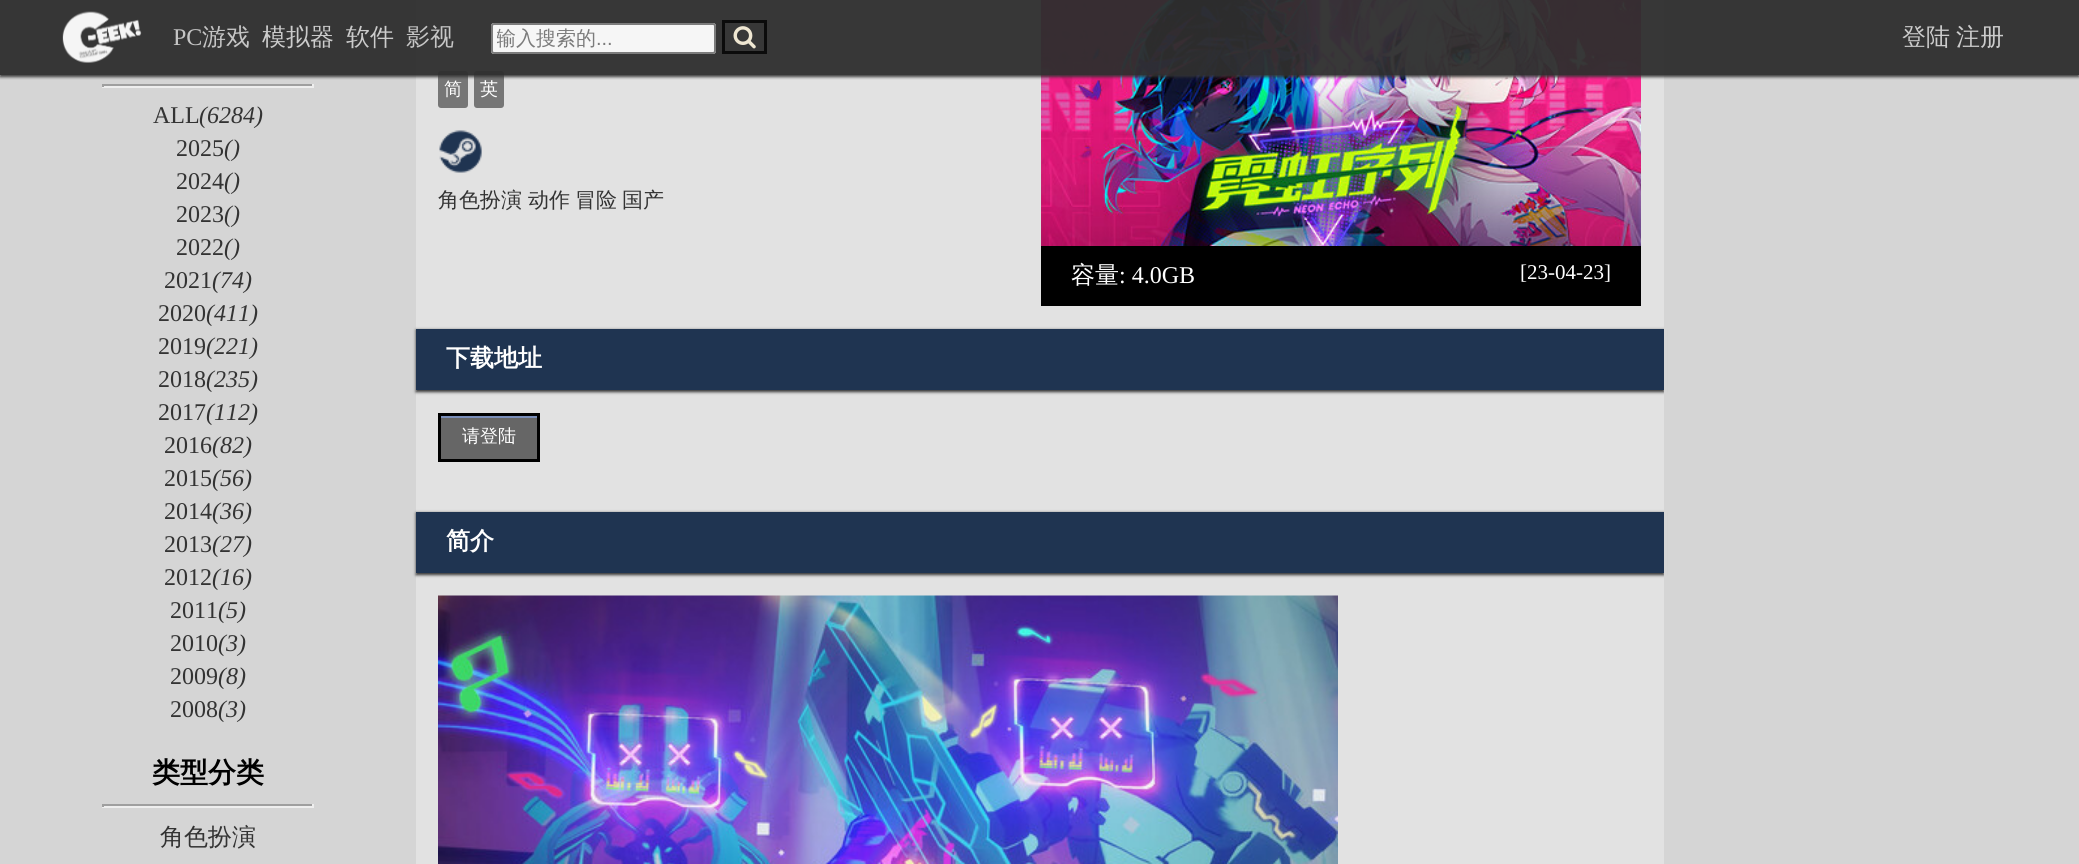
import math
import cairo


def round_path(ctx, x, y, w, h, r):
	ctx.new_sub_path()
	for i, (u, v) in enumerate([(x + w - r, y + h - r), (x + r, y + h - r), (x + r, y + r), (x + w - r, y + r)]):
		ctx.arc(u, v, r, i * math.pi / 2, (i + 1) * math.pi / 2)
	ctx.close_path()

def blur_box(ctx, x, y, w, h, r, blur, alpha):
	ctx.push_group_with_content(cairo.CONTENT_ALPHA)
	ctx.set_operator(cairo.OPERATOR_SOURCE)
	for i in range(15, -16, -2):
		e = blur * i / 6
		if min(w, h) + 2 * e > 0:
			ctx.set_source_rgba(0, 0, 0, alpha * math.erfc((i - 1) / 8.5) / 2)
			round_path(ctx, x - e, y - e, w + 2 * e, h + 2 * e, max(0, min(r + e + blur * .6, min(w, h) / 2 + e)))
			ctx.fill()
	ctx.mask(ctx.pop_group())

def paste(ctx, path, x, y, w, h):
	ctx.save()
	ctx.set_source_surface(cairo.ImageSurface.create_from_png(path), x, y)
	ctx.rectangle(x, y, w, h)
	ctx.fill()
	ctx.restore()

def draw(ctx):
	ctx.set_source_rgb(0.835, 0.835, 0.835)
	ctx.paint()
	ctx.set_source_rgb(0.886, 0.886, 0.886)
	ctx.rectangle(416, 0, 1248, 864)
	ctx.fill()
	ctx.set_source_rgb(0.463, 0.463, 0.463)
	round_path(ctx, 438, 71, 30, 37, 3)
	ctx.fill()
	round_path(ctx, 474, 71, 30, 37, 3)
	ctx.fill()
	paste(ctx, 'media/4.png', 1041, 0, 600, 246)
	ctx.save()
	ctx.rectangle(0, 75, 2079, 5)
	ctx.clip()
	ctx.set_source_rgb(0.2, 0.2, 0.2)
	blur_box(ctx, 0, 2, 2079, 75, 0, 1.5, 0.95)
	ctx.restore()
	ctx.set_source_rgba(0.184, 0.184, 0.184, 0.95)
	ctx.rectangle(0, 0, 2079, 75)
	ctx.fill()
	paste(ctx, 'media/1.png', 62, 11, 80, 52)
	ctx.select_font_face('Liberation Serif')
	ctx.set_font_size(24)
	ctx.set_source_rgb(0.773, 0.773, 0.773)
	ctx.move_to(173, 45)
	ctx.show_text('PC')
	ctx.select_font_face('WenQuanYi Zen Hei Medium')
	ctx.move_to(202, 45)
	ctx.show_text('游戏')
	ctx.set_source_rgb(0.8, 0.8, 0.8)
	ctx.move_to(262, 45)
	ctx.show_text('模拟器')
	ctx.move_to(346, 45)
	ctx.show_text('软件')
	ctx.set_source_rgb(0.773, 0.773, 0.773)
	ctx.move_to(406, 45)
	ctx.show_text('影视')
	ctx.set_source_rgba(1, 1, 1, 0.95)
	round_path(ctx, 491, 23, 225, 31, 3)
	ctx.fill()
	round_path(ctx, 492, 24, 223, 29, 2)
	ctx.set_source_rgba(0.463, 0.463, 0.463, 0.95)
	ctx.stroke()
	ctx.save()
	ctx.rectangle(497, 26, 193, 25)
	ctx.clip()
	ctx.set_font_size(20)
	ctx.set_source_rgb(0.482, 0.482, 0.482)
	ctx.move_to(496, 45)
	ctx.show_text('输入搜索的')
	ctx.restore()
	ctx.select_font_face('Liberation Sans')
	ctx.set_font_size(20)
	ctx.set_source_rgb(0.482, 0.482, 0.482)
	ctx.move_to(596, 45)
	ctx.show_text('...')
	ctx.rectangle(723.5, 21.5, 42, 31)
	ctx.set_source_rgb(0.043, 0.043, 0.043)
	ctx.set_line_width(3)
	ctx.stroke()
	paste(ctx, 'media/2.png', 733, 26, 23, 23)
	ctx.select_font_face('WenQuanYi Zen Hei Medium')
	ctx.set_font_size(24)
	ctx.set_source_rgb(0.8, 0.8, 0.8)
	ctx.move_to(1902, 45)
	ctx.show_text('登陆')
	ctx.move_to(1956, 45)
	ctx.show_text('注册')
	ctx.set_source_rgb(0.624, 0.624, 0.624)
	ctx.rectangle(102, 84, 212, 2)
	ctx.fill()
	ctx.set_source_rgb(0.933, 0.933, 0.933)
	ctx.rectangle(312, 84, 2, 3)
	ctx.rectangle(102, 86, 212, 2)
	ctx.fill()
	ctx.set_source_rgb(0.624, 0.624, 0.624)
	ctx.rectangle(102, 84, 2, 3)
	ctx.fill()
	ctx.select_font_face('Liberation Serif')
	ctx.set_source_rgb(0.2, 0.2, 0.2)
	ctx.move_to(153, 123)
	ctx.show_text('ALL')
	ctx.select_font_face('Liberation Serif', cairo.FONT_SLANT_ITALIC)
	ctx.move_to(199, 123)
	ctx.show_text('(6284)')
	ctx.select_font_face('Liberation Serif')
	ctx.move_to(176, 156)
	ctx.show_text('2025')
	ctx.select_font_face('Liberation Serif', cairo.FONT_SLANT_ITALIC)
	ctx.move_to(224, 156)
	ctx.show_text('()')
	ctx.select_font_face('Liberation Serif')
	ctx.move_to(176, 189)
	ctx.show_text('2024')
	ctx.select_font_face('Liberation Serif', cairo.FONT_SLANT_ITALIC)
	ctx.move_to(224, 189)
	ctx.show_text('()')
	ctx.select_font_face('Liberation Serif')
	ctx.move_to(176, 222)
	ctx.show_text('2023')
	ctx.select_font_face('Liberation Serif', cairo.FONT_SLANT_ITALIC)
	ctx.move_to(224, 222)
	ctx.show_text('()')
	ctx.select_font_face('Liberation Serif')
	ctx.move_to(176, 255)
	ctx.show_text('2022')
	ctx.select_font_face('Liberation Serif', cairo.FONT_SLANT_ITALIC)
	ctx.move_to(224, 255)
	ctx.show_text('()')
	ctx.select_font_face('Liberation Serif')
	ctx.move_to(164, 288)
	ctx.show_text('2021')
	ctx.select_font_face('Liberation Serif', cairo.FONT_SLANT_ITALIC)
	ctx.move_to(212, 288)
	ctx.show_text('(74)')
	ctx.select_font_face('Liberation Serif')
	ctx.move_to(158, 321)
	ctx.show_text('2020')
	ctx.select_font_face('Liberation Serif', cairo.FONT_SLANT_ITALIC)
	ctx.move_to(206, 321)
	ctx.show_text('(411)')
	ctx.select_font_face('Liberation Serif')
	ctx.move_to(158, 354)
	ctx.show_text('2019')
	ctx.select_font_face('Liberation Serif', cairo.FONT_SLANT_ITALIC)
	ctx.move_to(206, 354)
	ctx.show_text('(221)')
	ctx.select_font_face('Liberation Serif')
	ctx.move_to(158, 387)
	ctx.show_text('2018')
	ctx.select_font_face('Liberation Serif', cairo.FONT_SLANT_ITALIC)
	ctx.move_to(206, 387)
	ctx.show_text('(235)')
	ctx.select_font_face('Liberation Serif')
	ctx.move_to(158, 420)
	ctx.show_text('2017')
	ctx.select_font_face('Liberation Serif', cairo.FONT_SLANT_ITALIC)
	ctx.move_to(206, 420)
	ctx.show_text('(112)')
	ctx.select_font_face('Liberation Serif')
	ctx.move_to(164, 453)
	ctx.show_text('2016')
	ctx.select_font_face('Liberation Serif', cairo.FONT_SLANT_ITALIC)
	ctx.move_to(212, 453)
	ctx.show_text('(82)')
	ctx.select_font_face('Liberation Serif')
	ctx.move_to(164, 486)
	ctx.show_text('2015')
	ctx.select_font_face('Liberation Serif', cairo.FONT_SLANT_ITALIC)
	ctx.move_to(212, 486)
	ctx.show_text('(56)')
	ctx.select_font_face('Liberation Serif')
	ctx.move_to(164, 519)
	ctx.show_text('2014')
	ctx.select_font_face('Liberation Serif', cairo.FONT_SLANT_ITALIC)
	ctx.move_to(212, 519)
	ctx.show_text('(36)')
	ctx.select_font_face('Liberation Serif')
	ctx.move_to(164, 552)
	ctx.show_text('2013')
	ctx.select_font_face('Liberation Serif', cairo.FONT_SLANT_ITALIC)
	ctx.move_to(212, 552)
	ctx.show_text('(27)')
	ctx.select_font_face('Liberation Serif')
	ctx.move_to(164, 585)
	ctx.show_text('2012')
	ctx.select_font_face('Liberation Serif', cairo.FONT_SLANT_ITALIC)
	ctx.move_to(212, 585)
	ctx.show_text('(16)')
	ctx.select_font_face('Liberation Serif')
	ctx.move_to(170, 618)
	ctx.show_text('2011')
	ctx.select_font_face('Liberation Serif', cairo.FONT_SLANT_ITALIC)
	ctx.move_to(218, 618)
	ctx.show_text('(5)')
	ctx.select_font_face('Liberation Serif')
	ctx.move_to(170, 651)
	ctx.show_text('2010')
	ctx.select_font_face('Liberation Serif', cairo.FONT_SLANT_ITALIC)
	ctx.move_to(218, 651)
	ctx.show_text('(3)')
	ctx.select_font_face('Liberation Serif')
	ctx.move_to(170, 684)
	ctx.show_text('2009')
	ctx.select_font_face('Liberation Serif', cairo.FONT_SLANT_ITALIC)
	ctx.move_to(218, 684)
	ctx.show_text('(8)')
	ctx.select_font_face('Liberation Serif')
	ctx.move_to(170, 717)
	ctx.show_text('2008')
	ctx.select_font_face('Liberation Serif', cairo.FONT_SLANT_ITALIC)
	ctx.move_to(218, 717)
	ctx.show_text('(3)')
	ctx.select_font_face('WenQuanYi Zen Hei', cairo.FONT_SLANT_NORMAL, cairo.FONT_WEIGHT_BOLD)
	ctx.set_font_size(28)
	ctx.set_source_rgb(0, 0, 0)
	ctx.move_to(152, 782)
	ctx.show_text('类型分类')
	ctx.set_source_rgb(0.624, 0.624, 0.624)
	ctx.rectangle(102, 804, 212, 2)
	ctx.fill()
	ctx.set_source_rgb(0.933, 0.933, 0.933)
	ctx.rectangle(312, 804, 2, 3)
	ctx.rectangle(102, 806, 212, 2)
	ctx.fill()
	ctx.set_source_rgb(0.624, 0.624, 0.624)
	ctx.rectangle(102, 804, 2, 3)
	ctx.fill()
	ctx.select_font_face('WenQuanYi Zen Hei Medium')
	ctx.set_font_size(24)
	ctx.set_source_rgb(0.2, 0.2, 0.2)
	ctx.move_to(160, 845)
	ctx.show_text('角色扮演')
	ctx.set_font_size(18)
	ctx.set_source_rgb(1, 1, 1)
	ctx.move_to(444, 95)
	ctx.show_text('简')
	ctx.move_to(480, 95)
	ctx.show_text('英')
	paste(ctx, 'media/3.png', 439, 130, 43, 43)
	ctx.set_font_size(21)
	ctx.set_source_rgb(0.2, 0.2, 0.2)
	for x, y, s in [
		(438, 207, '角色扮演'),
		(528, 207, '动作'),
		(575, 207, '冒险'),
		(622, 207, '国产'),
	]:
		ctx.move_to(x, y)
		ctx.show_text(s)
	ctx.set_source_rgb(0, 0, 0)
	ctx.rectangle(1041, 246, 600, 60)
	ctx.fill()
	ctx.set_font_size(24)
	ctx.set_source_rgb(1, 1, 1)
	ctx.move_to(1071, 283)
	ctx.show_text('容量')
	ctx.select_font_face('Liberation Serif')
	ctx.move_to(1119, 283)
	ctx.show_text(': 4.0GB')
	ctx.set_font_size(21)
	ctx.move_to(1520, 279)
	ctx.show_text('[23-04-23]')
	ctx.set_source_rgb(0.2, 0.2, 0.2)
	blur_box(ctx, 416, 330, 1248, 62, 0, 1.5, 1)
	ctx.set_source_rgb(0.122, 0.204, 0.318)
	ctx.rectangle(416, 329, 1248, 61)
	ctx.fill()
	ctx.select_font_face('WenQuanYi Zen Hei', cairo.FONT_SLANT_NORMAL, cairo.FONT_WEIGHT_BOLD)
	ctx.set_font_size(24)
	ctx.set_source_rgb(1, 1, 1)
	ctx.move_to(446, 366)
	ctx.show_text('下载地址')
	ctx.set_source_rgb(0.4, 0.4, 0.4)
	ctx.rectangle(441, 418, 96, 41)
	ctx.fill()
	ctx.set_source_rgb(0.478, 0.557, 0.725)
	ctx.rectangle(441, 416, 96, 2)
	ctx.fill()
	ctx.rectangle(439.5, 414.5, 99, 46)
	ctx.set_source_rgb(0, 0, 0)
	ctx.stroke()
	ctx.select_font_face('WenQuanYi Zen Hei Medium')
	ctx.set_font_size(18)
	ctx.set_source_rgb(1, 1, 1)
	ctx.move_to(462, 442)
	ctx.show_text('请登陆')
	ctx.set_source_rgb(0.2, 0.2, 0.2)
	blur_box(ctx, 416, 513, 1248, 62, 0, 1.5, 1)
	ctx.set_source_rgb(0.122, 0.204, 0.318)
	ctx.rectangle(416, 512, 1248, 61)
	ctx.fill()
	ctx.select_font_face('WenQuanYi Zen Hei', cairo.FONT_SLANT_NORMAL, cairo.FONT_WEIGHT_BOLD)
	ctx.set_font_size(24)
	ctx.set_source_rgb(1, 1, 1)
	ctx.move_to(446, 549)
	ctx.show_text('简介')
	paste(ctx, 'media/5.png', 438, 595, 900, 269)
	ctx.set_source_rgb(0.835, 0.835, 0.835)
	ctx.rectangle(1664, 327, 3, 251)
	ctx.fill()


surface = cairo.ImageSurface(cairo.FORMAT_RGB24, 2079, 864)
ctx = cairo.Context(surface)
options = cairo.FontOptions()
options.set_hint_metrics(cairo.HINT_METRICS_OFF)
options.set_hint_style(cairo.HINT_STYLE_NONE)
ctx.set_font_options(options)
ctx.set_miter_limit(4)
draw(ctx)
surface.write_to_png('image.png')
